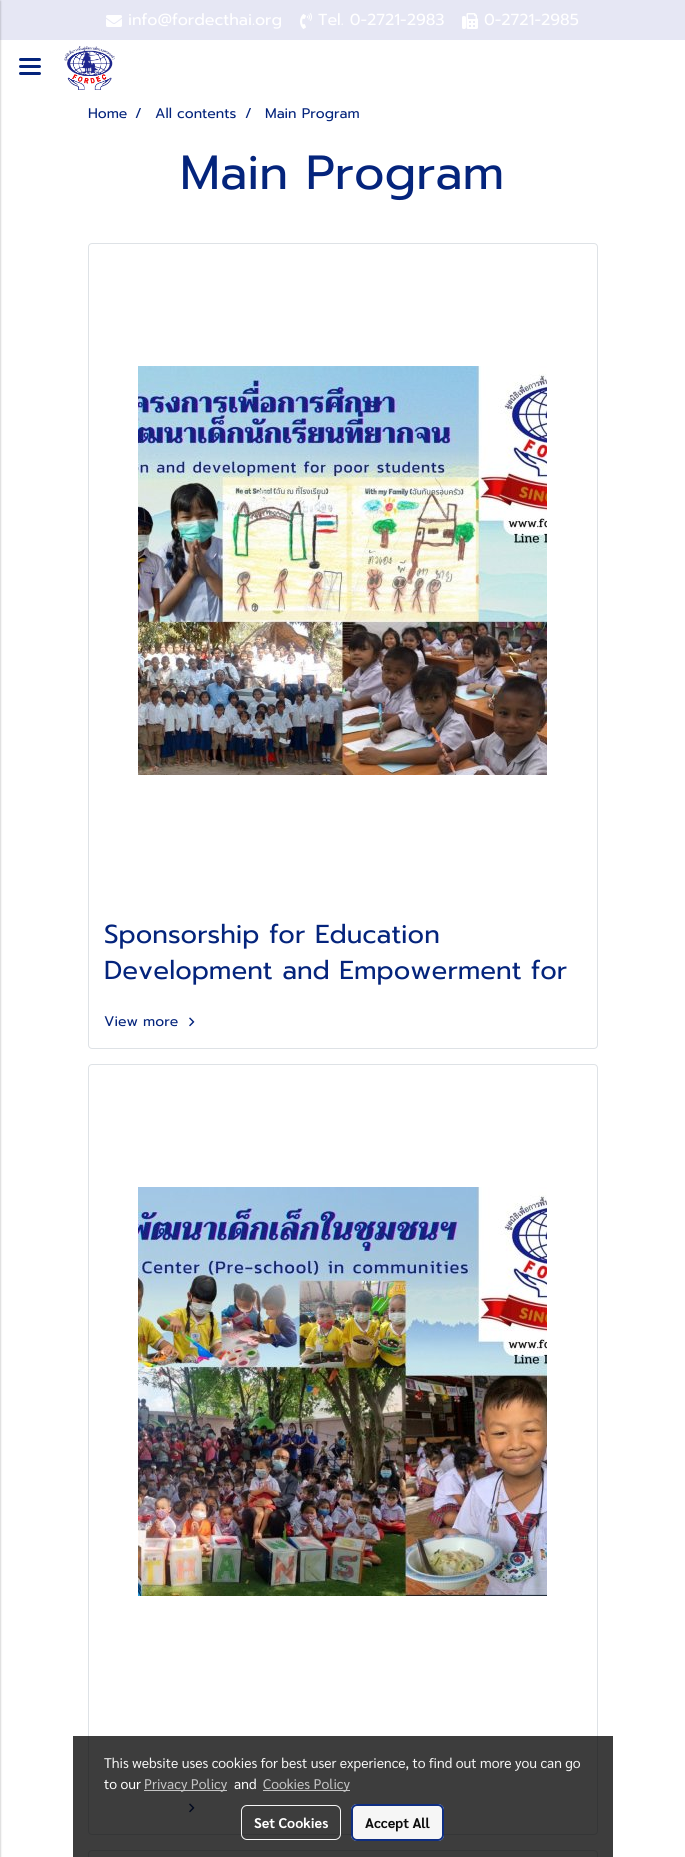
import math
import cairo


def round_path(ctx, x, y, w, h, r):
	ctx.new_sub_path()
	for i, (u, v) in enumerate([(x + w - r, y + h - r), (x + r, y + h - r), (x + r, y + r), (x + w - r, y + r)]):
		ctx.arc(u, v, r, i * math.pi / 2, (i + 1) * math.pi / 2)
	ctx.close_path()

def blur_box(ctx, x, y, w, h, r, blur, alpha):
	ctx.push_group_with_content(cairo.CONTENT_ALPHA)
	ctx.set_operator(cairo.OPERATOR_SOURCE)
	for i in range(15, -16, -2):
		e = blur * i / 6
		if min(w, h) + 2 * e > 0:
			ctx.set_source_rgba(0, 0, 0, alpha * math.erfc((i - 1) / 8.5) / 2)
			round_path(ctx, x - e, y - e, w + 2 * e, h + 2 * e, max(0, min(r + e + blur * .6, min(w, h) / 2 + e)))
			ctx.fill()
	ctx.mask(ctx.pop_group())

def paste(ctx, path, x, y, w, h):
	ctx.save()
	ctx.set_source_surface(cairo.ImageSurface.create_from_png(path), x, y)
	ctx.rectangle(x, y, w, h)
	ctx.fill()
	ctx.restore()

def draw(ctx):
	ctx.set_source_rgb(1, 1, 1)
	ctx.paint()
	ctx.set_source_rgb(0.902, 0.906, 0.957)
	ctx.rectangle(0, 0, 685, 40)
	ctx.fill()
	ctx.set_source_rgb(0, 0, 0)
	blur_box(ctx, -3, 1, 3, 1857, 0, 1, 0.24)
	blur_box(ctx, -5, 1, 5, 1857, 0, 1.5, 0.12)
	ctx.set_source_rgb(0.016, 0.141, 0.486)
	round_path(ctx, 19, 65, 22, 3, 1.5)
	ctx.fill()
	round_path(ctx, 19, 58, 22, 3, 1.5)
	ctx.fill()
	round_path(ctx, 19, 72, 22, 3, 1.5)
	ctx.fill()
	paste(ctx, 'media/1.png', 64, 46, 51, 44)
	paste(ctx, 'media/2.png', 106, 15, 16, 12)
	ctx.select_font_face('Prompt')
	ctx.set_font_size(16)
	ctx.set_source_rgb(1, 1, 1)
	ctx.move_to(128, 25)
	ctx.show_text('info@fordecthai.org')
	paste(ctx, 'media/3.png', 300, 13, 12, 16)
	ctx.move_to(318, 25)
	ctx.show_text('Tel. 0-2721-2983')
	paste(ctx, 'media/4.png', 462, 13, 16, 16)
	ctx.move_to(484, 25)
	ctx.show_text('0-2721-2985')
	ctx.set_font_size(14)
	ctx.set_source_rgb(0.016, 0.141, 0.486)
	for x, y, s in [
		(88, 118, 'Home'),
		(135, 118, '/'),
		(155, 118, 'All contents'),
		(245, 118, '/'),
		(265, 118, 'Main Program'),
	]:
		ctx.move_to(x, y)
		ctx.show_text(s)
	ctx.set_font_size(48)
	ctx.move_to(180, 189)
	ctx.show_text('Main Program')
	round_path(ctx, 88.5, 243.5, 509, 805, 3.5)
	ctx.set_source_rgb(0.871, 0.886, 0.902)
	ctx.set_line_width(1)
	ctx.stroke()
	paste(ctx, 'media/5.png', 138, 366, 409, 409)
	ctx.set_font_size(26)
	ctx.set_source_rgb(0.016, 0.141, 0.486)
	ctx.move_to(104, 943)
	ctx.show_text('Sponsorship for Education')
	ctx.move_to(104, 979)
	ctx.show_text('Development and Empowerment for')
	ctx.set_font_size(14)
	ctx.move_to(104, 1026)
	ctx.show_text('View more')
	paste(ctx, 'media/6.png', 189, 1017, 6, 10)
	round_path(ctx, 88.5, 1064.5, 509, 770, 3.5)
	ctx.set_source_rgb(0.871, 0.886, 0.902)
	ctx.stroke()
	paste(ctx, 'media/7.png', 138, 1187, 409, 409)
	paste(ctx, 'media/6.png', 189, 1803, 6, 10)
	round_path(ctx, 88.5, 1850.5, 509, 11, 3.5)
	ctx.stroke()
	ctx.set_source_rgba(0, 0, 0, 0.76)
	ctx.rectangle(73, 1736, 540, 121)
	ctx.fill()
	ctx.select_font_face('Sarabun')
	ctx.set_source_rgb(0.961, 0.961, 0.961)
	ctx.move_to(104, 1768)
	ctx.show_text('This website uses cookies for best user experience, to find out more you can go')
	ctx.set_source_rgb(1, 1, 1)
	ctx.move_to(104, 1789)
	ctx.show_text('to our')
	ctx.set_source_rgb(0.773, 0.773, 0.773)
	ctx.rectangle(144, 1790, 83, 1)
	ctx.fill()
	ctx.move_to(144, 1789)
	ctx.show_text('Privacy Policy')
	ctx.set_source_rgb(1, 1, 1)
	ctx.move_to(234, 1789)
	ctx.show_text('and')
	ctx.set_source_rgb(0.773, 0.773, 0.773)
	ctx.rectangle(263, 1790, 87, 1)
	ctx.fill()
	ctx.move_to(263, 1789)
	ctx.show_text('Cookies Policy')
	round_path(ctx, 241.5, 1805.5, 99, 34, 5.5)
	ctx.set_source_rgba(1, 1, 1, 0.95)
	ctx.stroke()
	ctx.select_font_face('Sarabun', cairo.FONT_SLANT_NORMAL, cairo.FONT_WEIGHT_BOLD)
	ctx.set_source_rgb(1, 1, 1)
	ctx.move_to(254, 1828)
	ctx.show_text('Set Cookies')
	ctx.set_source_rgba(1, 1, 1, 0.95)
	round_path(ctx, 351, 1804, 93, 37, 6)
	ctx.fill()
	round_path(ctx, 352, 1805, 91, 35, 5)
	ctx.set_source_rgba(0.016, 0.141, 0.486, 0.95)
	ctx.set_line_width(2)
	ctx.stroke()
	ctx.set_source_rgb(0.051, 0.051, 0.051)
	ctx.move_to(365, 1828)
	ctx.show_text('Accept All')


surface = cairo.ImageSurface(cairo.FORMAT_RGB24, 685, 1857)
ctx = cairo.Context(surface)
options = cairo.FontOptions()
options.set_hint_metrics(cairo.HINT_METRICS_OFF)
options.set_hint_style(cairo.HINT_STYLE_NONE)
ctx.set_font_options(options)
ctx.set_miter_limit(4)
draw(ctx)
surface.write_to_png('image.png')
